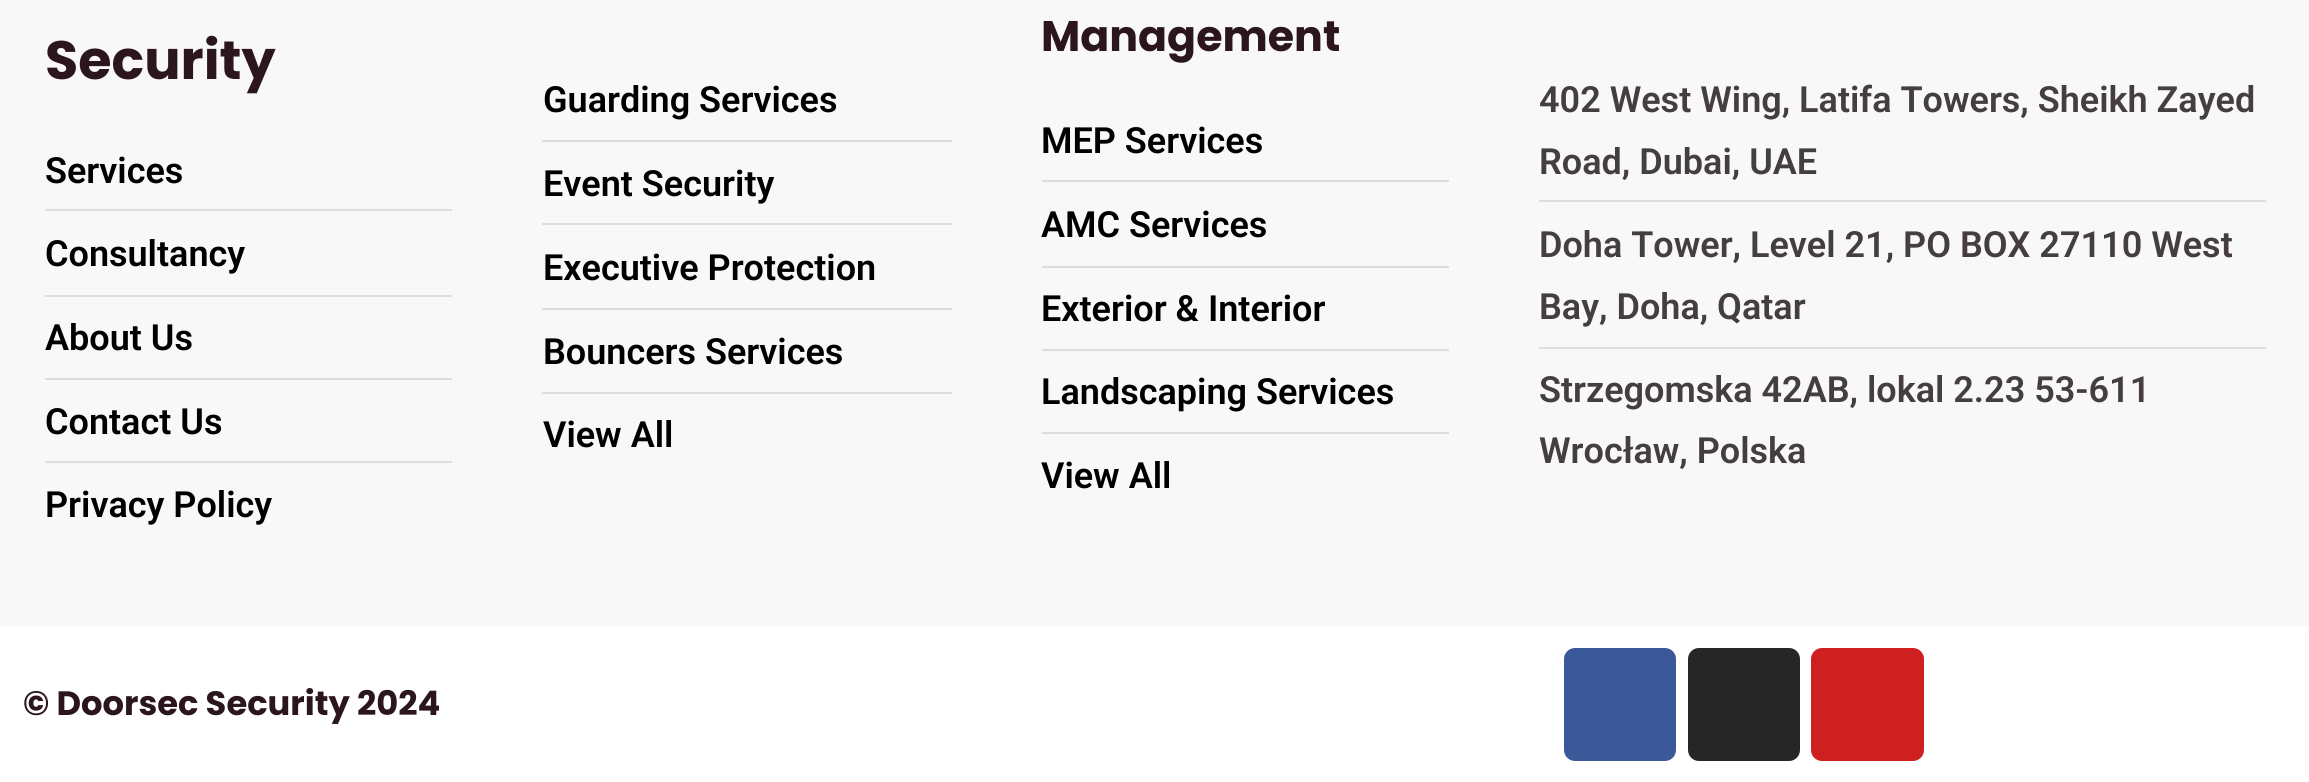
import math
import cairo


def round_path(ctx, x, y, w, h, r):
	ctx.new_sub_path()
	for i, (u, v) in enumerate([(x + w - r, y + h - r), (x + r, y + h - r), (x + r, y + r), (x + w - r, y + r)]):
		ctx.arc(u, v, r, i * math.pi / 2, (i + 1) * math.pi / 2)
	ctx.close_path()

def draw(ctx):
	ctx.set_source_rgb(0.969, 0.969, 0.969)
	ctx.paint()
	ctx.select_font_face('Poppins', cairo.FONT_SLANT_NORMAL, cairo.FONT_WEIGHT_BOLD)
	ctx.set_font_size(54)
	ctx.set_source_rgb(0.169, 0.086, 0.106)
	ctx.move_to(45, 79)
	ctx.show_text('Security')
	ctx.select_font_face('Roboto SemiBold')
	ctx.set_font_size(36)
	ctx.set_source_rgb(0, 0, 0)
	ctx.move_to(45, 183)
	ctx.show_text('Services')
	ctx.set_source_rgb(0.867, 0.867, 0.867)
	ctx.rectangle(45, 209, 407, 2)
	ctx.fill()
	ctx.set_source_rgb(0, 0, 0)
	ctx.move_to(45, 266)
	ctx.show_text('Consultancy')
	ctx.set_source_rgb(0.867, 0.867, 0.867)
	ctx.rectangle(45, 295, 407, 2)
	ctx.fill()
	ctx.set_source_rgb(0, 0, 0)
	ctx.move_to(45, 350)
	ctx.show_text('About Us')
	ctx.set_source_rgb(0.867, 0.867, 0.867)
	ctx.rectangle(45, 378, 407, 2)
	ctx.fill()
	ctx.set_source_rgb(0, 0, 0)
	ctx.move_to(45, 434)
	ctx.show_text('Contact Us')
	ctx.set_source_rgb(0.867, 0.867, 0.867)
	ctx.rectangle(45, 461, 407, 2)
	ctx.fill()
	ctx.set_source_rgb(0, 0, 0)
	ctx.move_to(45, 517)
	ctx.show_text('Privacy Policy')
	ctx.move_to(543, 112)
	ctx.show_text('Guarding Services')
	ctx.set_source_rgb(0.867, 0.867, 0.867)
	ctx.rectangle(542, 140, 410, 2)
	ctx.fill()
	ctx.set_source_rgb(0, 0, 0)
	ctx.move_to(543, 196)
	ctx.show_text('Event Security')
	ctx.set_source_rgb(0.867, 0.867, 0.867)
	ctx.rectangle(542, 223, 410, 2)
	ctx.fill()
	ctx.set_source_rgb(0, 0, 0)
	ctx.move_to(543, 280)
	ctx.show_text('Executive Protection')
	ctx.set_source_rgb(0.867, 0.867, 0.867)
	ctx.rectangle(542, 308, 410, 2)
	ctx.fill()
	ctx.set_source_rgb(0, 0, 0)
	ctx.move_to(543, 364)
	ctx.show_text('Bouncers Services')
	ctx.set_source_rgb(0.867, 0.867, 0.867)
	ctx.rectangle(542, 392, 410, 2)
	ctx.fill()
	ctx.set_source_rgb(0, 0, 0)
	ctx.move_to(543, 447)
	ctx.show_text('View All')
	ctx.select_font_face('Poppins', cairo.FONT_SLANT_NORMAL, cairo.FONT_WEIGHT_BOLD)
	ctx.set_font_size(42.75)
	ctx.set_source_rgb(0.169, 0.086, 0.106)
	ctx.move_to(1041, 51)
	ctx.show_text('Management')
	ctx.select_font_face('Roboto SemiBold')
	ctx.set_font_size(36)
	ctx.set_source_rgb(0, 0, 0)
	ctx.move_to(1041, 153)
	ctx.show_text('MEP Services')
	ctx.set_source_rgb(0.867, 0.867, 0.867)
	ctx.rectangle(1042, 180, 407, 2)
	ctx.fill()
	ctx.set_source_rgb(0, 0, 0)
	ctx.move_to(1041, 237)
	ctx.show_text('AMC Services')
	ctx.set_source_rgb(0.867, 0.867, 0.867)
	ctx.rectangle(1042, 266, 407, 2)
	ctx.fill()
	ctx.set_source_rgb(0, 0, 0)
	ctx.move_to(1041, 321)
	ctx.show_text('Exterior & Interior')
	ctx.set_source_rgb(0.867, 0.867, 0.867)
	ctx.rectangle(1042, 349, 407, 2)
	ctx.fill()
	ctx.set_source_rgb(0, 0, 0)
	ctx.move_to(1041, 404)
	ctx.show_text('Landscaping Services')
	ctx.set_source_rgb(0.867, 0.867, 0.867)
	ctx.rectangle(1042, 432, 407, 2)
	ctx.fill()
	ctx.set_source_rgb(0, 0, 0)
	ctx.move_to(1041, 488)
	ctx.show_text('View All')
	ctx.set_source_rgb(0.271, 0.243, 0.243)
	ctx.move_to(1539, 112)
	ctx.show_text('402 West Wing, Latifa Towers, Sheikh Zayed')
	ctx.move_to(1539, 174)
	ctx.show_text('Road, Dubai, UAE')
	ctx.set_source_rgb(0.867, 0.867, 0.867)
	ctx.rectangle(1539, 200, 727, 2)
	ctx.fill()
	ctx.set_source_rgb(0.271, 0.243, 0.243)
	ctx.move_to(1539, 257)
	ctx.show_text('Doha Tower, Level 21, PO BOX 27110 West')
	ctx.move_to(1539, 319)
	ctx.show_text('Bay, Doha, Qatar')
	ctx.set_source_rgb(0.867, 0.867, 0.867)
	ctx.rectangle(1539, 347, 727, 2)
	ctx.fill()
	ctx.set_source_rgb(0.271, 0.243, 0.243)
	ctx.move_to(1539, 402)
	ctx.show_text('Strzegomska 42AB, lokal 2.23 53-611')
	ctx.move_to(1539, 463)
	ctx.show_text('Wrocław, Polska')
	ctx.set_source_rgb(1, 1, 1)
	ctx.rectangle(0, 626, 2309, 156)
	ctx.fill()
	ctx.select_font_face('Poppins', cairo.FONT_SLANT_NORMAL, cairo.FONT_WEIGHT_BOLD)
	ctx.set_font_size(33.75)
	ctx.set_source_rgb(0.169, 0.086, 0.106)
	ctx.move_to(23, 715)
	ctx.show_text('© Doorsec Security 2024')
	ctx.set_source_rgb(0.231, 0.349, 0.596)
	round_path(ctx, 1564, 648, 112, 113, 11)
	ctx.fill()
	ctx.set_source_rgb(0.149, 0.149, 0.149)
	round_path(ctx, 1688, 648, 112, 113, 11)
	ctx.fill()
	ctx.set_source_rgb(0.804, 0.125, 0.122)
	round_path(ctx, 1811, 648, 113, 113, 11)
	ctx.fill()


surface = cairo.ImageSurface(cairo.FORMAT_RGB24, 2309, 782)
ctx = cairo.Context(surface)
options = cairo.FontOptions()
options.set_hint_metrics(cairo.HINT_METRICS_OFF)
options.set_hint_style(cairo.HINT_STYLE_NONE)
ctx.set_font_options(options)
ctx.set_miter_limit(4)
draw(ctx)
surface.write_to_png('image.png')
